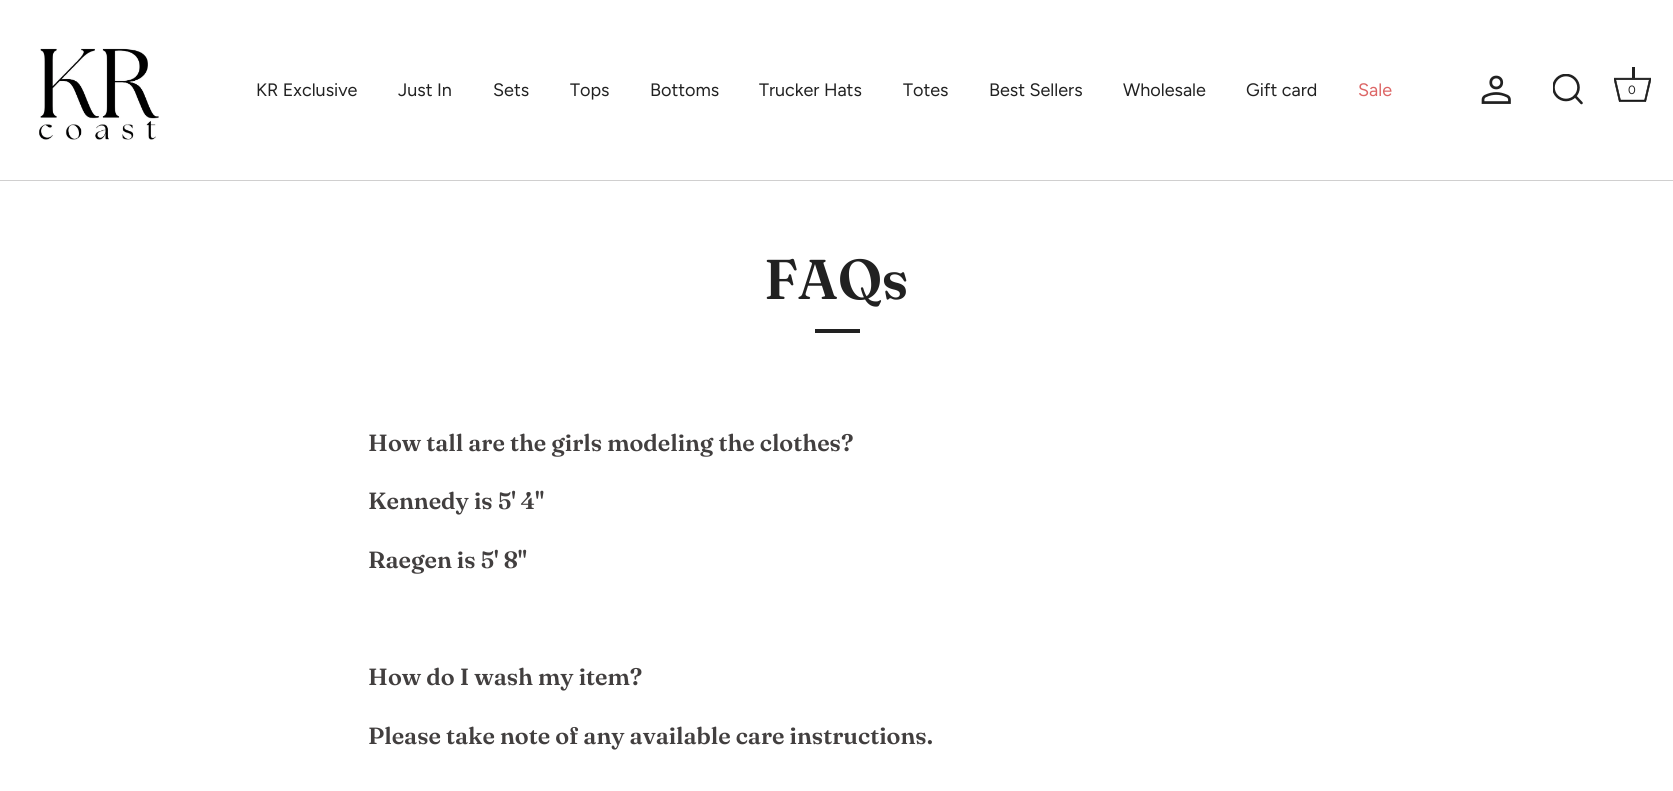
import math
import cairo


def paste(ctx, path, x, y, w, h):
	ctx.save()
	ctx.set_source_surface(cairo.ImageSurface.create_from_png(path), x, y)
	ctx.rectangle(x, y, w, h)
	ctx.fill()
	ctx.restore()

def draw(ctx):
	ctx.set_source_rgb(1, 1, 1)
	ctx.paint()
	ctx.set_source_rgb(0.816, 0.812, 0.812)
	ctx.rectangle(0, 180, 1673, 1)
	ctx.fill()
	paste(ctx, 'media/1.png', 39, 48, 120, 92)
	ctx.select_font_face('Figtree')
	ctx.set_font_size(18)
	ctx.set_source_rgb(0.129, 0.129, 0.129)
	for x, y, s in [
		(256, 96, 'KR Exclusive'),
		(398, 96, 'Just In'),
		(493, 96, 'Sets'),
		(570, 96, 'Tops'),
		(650, 96, 'Bottoms'),
		(759, 96, 'Trucker Hats'),
		(903, 96, 'Totes'),
		(989, 96, 'Best Sellers'),
		(1123, 96, 'Wholesale'),
		(1246, 96, 'Gift card'),
	]:
		ctx.move_to(x, y)
		ctx.show_text(s)
	ctx.set_source_rgb(0.867, 0.4, 0.4)
	ctx.move_to(1358, 96)
	ctx.show_text('Sale')
	paste(ctx, 'media/2.png', 1481, 75, 30, 29)
	ctx.save()
	ctx.rectangle(1553, 74, 31, 31)
	ctx.clip()
	ctx.arc(1566, 87.5, 12.5, 0, 2 * math.pi)
	ctx.set_source_rgb(0.129, 0.129, 0.129)
	ctx.set_line_width(2.6)
	ctx.stroke()
	ctx.restore()
	ctx.new_path()
	ctx.move_to(1581.5, 103)
	ctx.line_to(1575, 96)
	ctx.set_source_rgb(0.129, 0.129, 0.129)
	ctx.set_line_width(2.6)
	ctx.set_line_cap(cairo.LINE_CAP_ROUND)
	ctx.set_line_join(cairo.LINE_JOIN_ROUND)
	ctx.stroke()
	paste(ctx, 'media/3.png', 1614, 67, 37, 35)
	ctx.set_font_size(12)
	ctx.move_to(1628, 94)
	ctx.show_text('0')
	ctx.select_font_face('Fraunces SemiBold')
	ctx.set_font_size(56)
	ctx.move_to(764, 299)
	ctx.show_text('FAQs')
	ctx.rectangle(815, 329, 45, 4)
	ctx.fill()
	ctx.select_font_face('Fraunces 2 SemiBold')
	ctx.set_font_size(23.4)
	ctx.set_source_rgb(0.259, 0.247, 0.247)
	for x, y, s in [
		(368, 451, 'How tall are the girls modeling the clothes?'),
		(368, 509, 'Kennedy is 5\' 4"'),
		(368, 568, 'Raegen is 5\' 8"'),
		(368, 685, 'How do I wash my item?'),
		(368, 744, 'Please take note of any available care instructions.'),
	]:
		ctx.move_to(x, y)
		ctx.show_text(s)


surface = cairo.ImageSurface(cairo.FORMAT_RGB24, 1673, 791)
ctx = cairo.Context(surface)
options = cairo.FontOptions()
options.set_hint_metrics(cairo.HINT_METRICS_OFF)
options.set_hint_style(cairo.HINT_STYLE_NONE)
ctx.set_font_options(options)
ctx.set_miter_limit(4)
draw(ctx)
surface.write_to_png('image.png')
